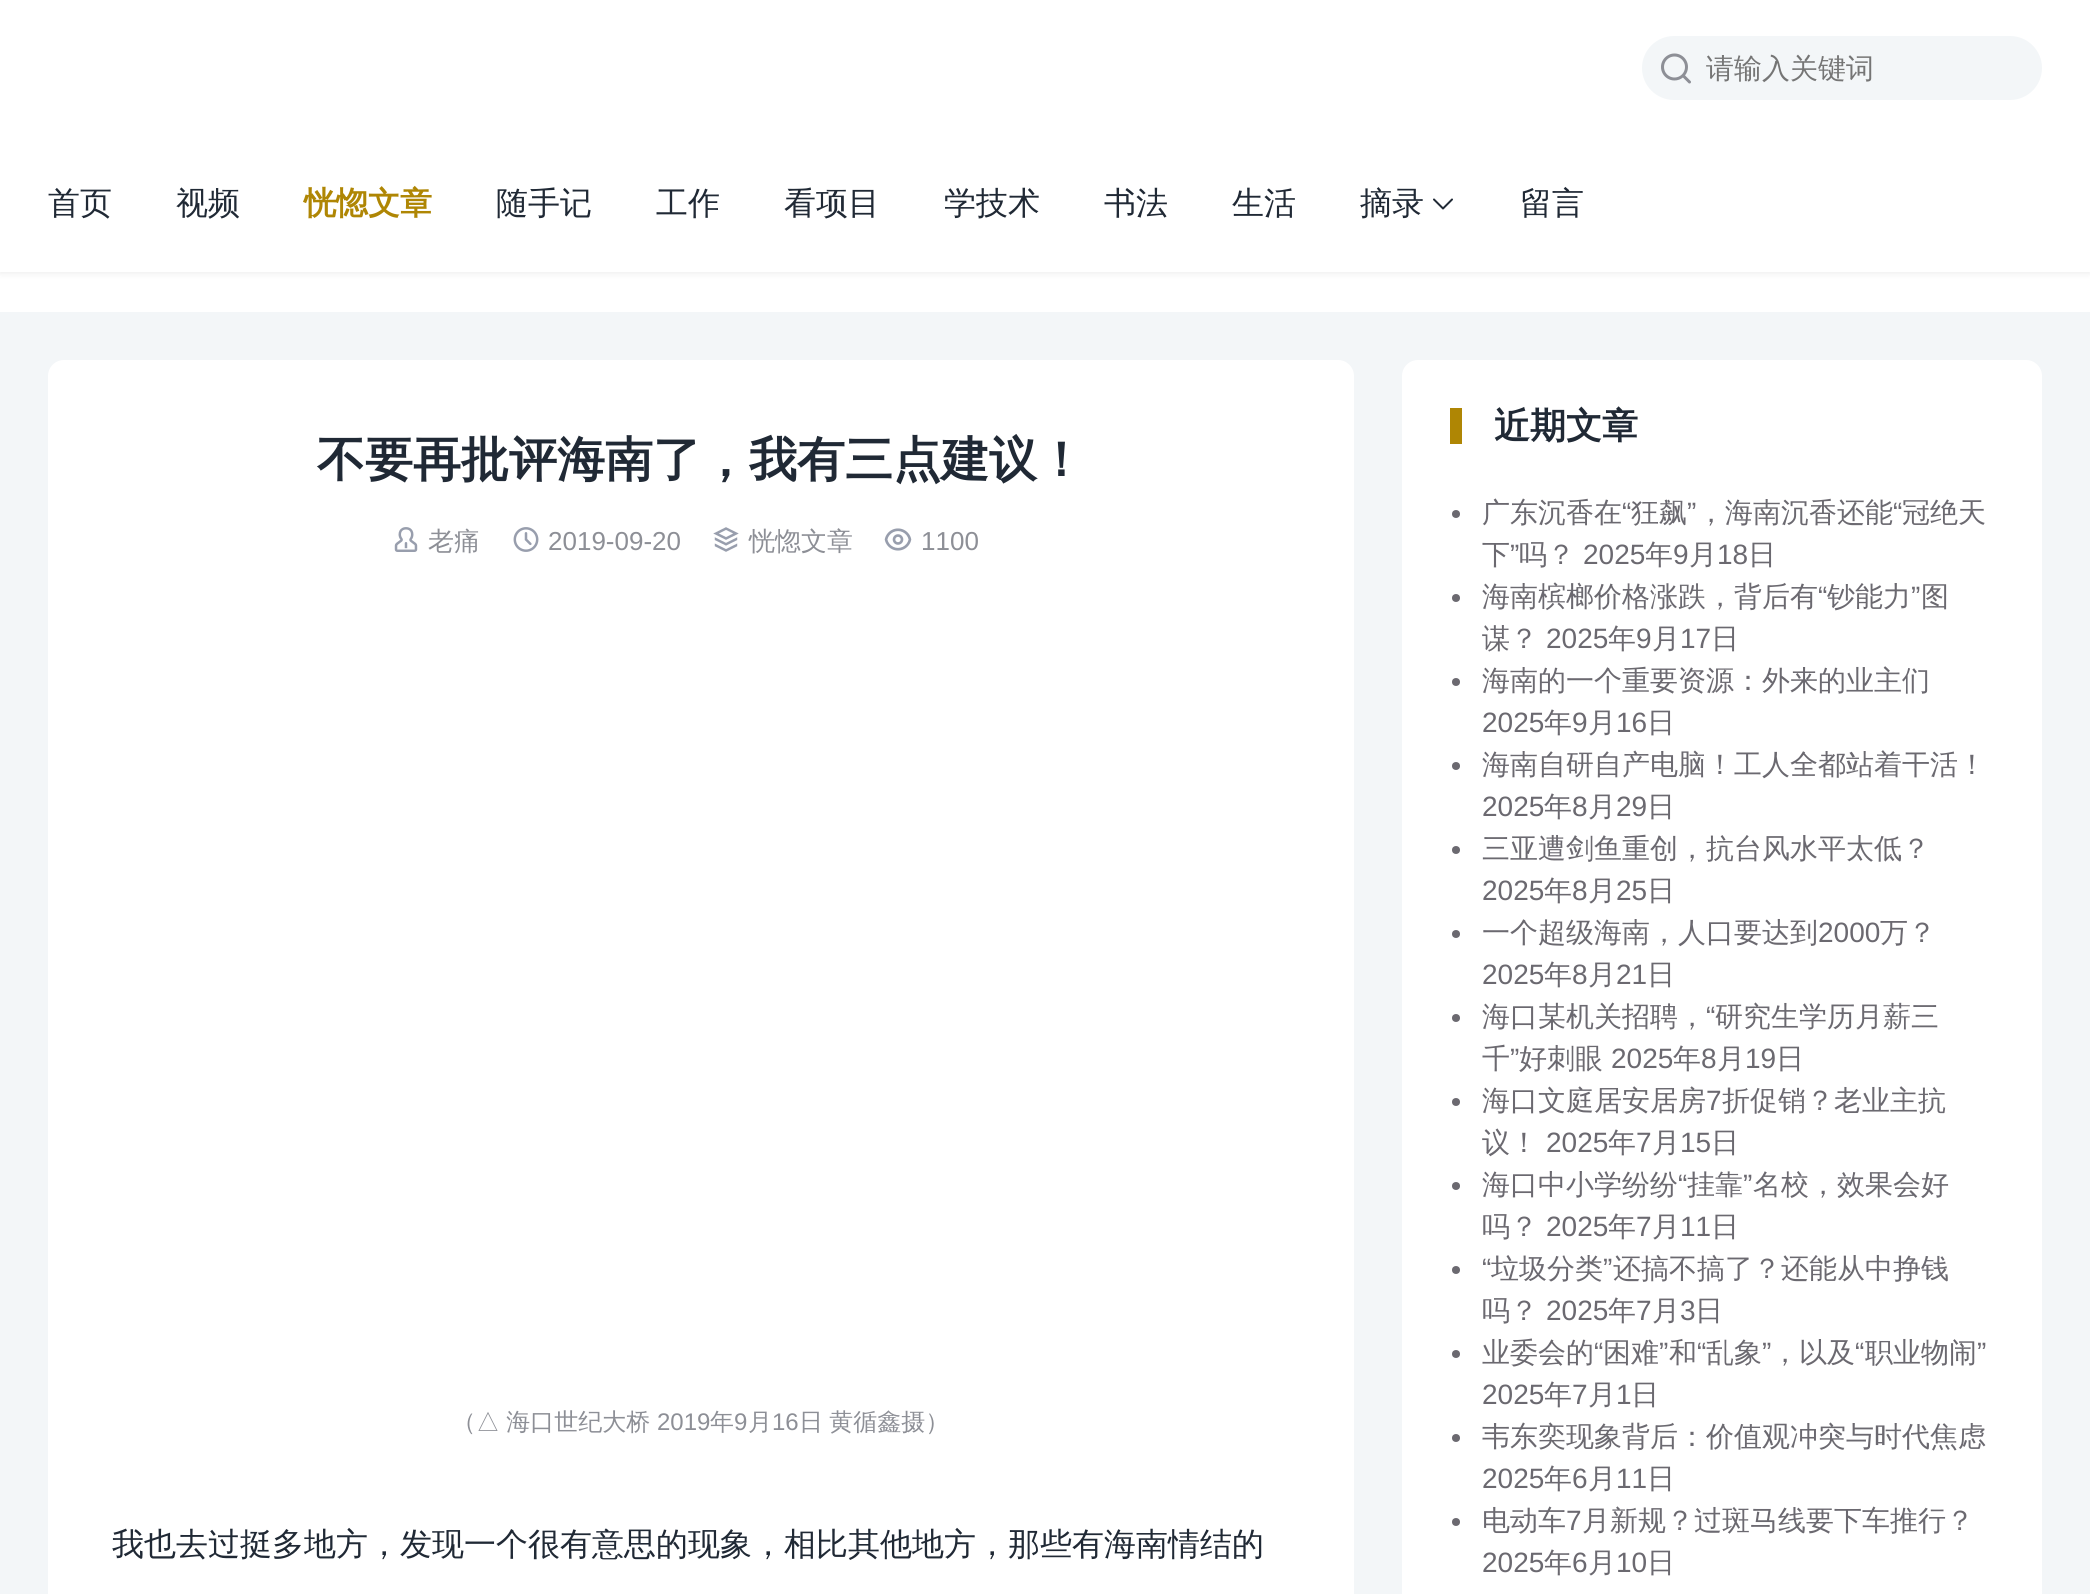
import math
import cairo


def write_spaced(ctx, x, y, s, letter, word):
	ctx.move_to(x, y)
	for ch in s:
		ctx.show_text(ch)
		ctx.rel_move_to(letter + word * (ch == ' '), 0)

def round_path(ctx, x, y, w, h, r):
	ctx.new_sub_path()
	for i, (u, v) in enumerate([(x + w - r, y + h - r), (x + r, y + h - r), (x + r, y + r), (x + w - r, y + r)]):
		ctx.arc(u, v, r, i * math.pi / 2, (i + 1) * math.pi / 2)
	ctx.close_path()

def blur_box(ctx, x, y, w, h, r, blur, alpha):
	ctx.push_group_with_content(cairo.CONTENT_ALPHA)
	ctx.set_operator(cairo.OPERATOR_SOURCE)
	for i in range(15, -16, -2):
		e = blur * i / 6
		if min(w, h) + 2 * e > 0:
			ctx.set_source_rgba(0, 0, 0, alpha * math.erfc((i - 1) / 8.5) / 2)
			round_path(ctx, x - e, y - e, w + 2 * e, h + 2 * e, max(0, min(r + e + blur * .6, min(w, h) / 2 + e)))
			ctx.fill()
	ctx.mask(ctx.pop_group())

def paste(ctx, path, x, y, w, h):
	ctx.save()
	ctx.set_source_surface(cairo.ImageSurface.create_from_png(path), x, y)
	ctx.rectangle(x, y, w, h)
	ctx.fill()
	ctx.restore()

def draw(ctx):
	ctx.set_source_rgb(0.953, 0.961, 0.969)
	ctx.paint()
	ctx.set_source_rgb(1, 1, 1)
	ctx.rectangle(0, 272, 2090, 40)
	ctx.fill()
	ctx.set_source_rgb(0, 0, 0)
	blur_box(ctx, 0, 0, 2090, 272, 0, 4, 0.1)
	ctx.set_source_rgb(1, 1, 1)
	ctx.rectangle(0, 0, 2090, 272)
	ctx.fill()
	ctx.set_source_rgb(0.953, 0.961, 0.969)
	round_path(ctx, 1642, 36, 400, 64, 32)
	ctx.fill()
	paste(ctx, 'media/1.png', 1661, 53, 30, 31)
	ctx.select_font_face('WenQuanYi Zen Hei Medium')
	ctx.set_font_size(28)
	ctx.set_source_rgb(0.459, 0.459, 0.459)
	ctx.move_to(1706, 78)
	ctx.show_text('请输入关键词')
	ctx.set_font_size(32)
	ctx.set_source_rgb(0.125, 0.161, 0.208)
	ctx.move_to(48, 214)
	ctx.show_text('首页')
	ctx.move_to(176, 214)
	ctx.show_text('视频')
	ctx.select_font_face('WenQuanYi Zen Hei', cairo.FONT_SLANT_NORMAL, cairo.FONT_WEIGHT_BOLD)
	ctx.set_source_rgb(0.686, 0.525, 0.016)
	ctx.move_to(304, 214)
	ctx.show_text('恍惚文章')
	ctx.select_font_face('WenQuanYi Zen Hei Medium')
	ctx.set_source_rgb(0.125, 0.161, 0.208)
	for x, y, s in [
		(496, 214, '随手记'),
		(656, 214, '工作'),
		(784, 214, '看项目'),
		(944, 214, '学技术'),
		(1104, 214, '书法'),
		(1232, 214, '生活'),
		(1360, 214, '摘录'),
	]:
		ctx.move_to(x, y)
		ctx.show_text(s)
	paste(ctx, 'media/2.png', 1433, 198, 20, 12)
	ctx.move_to(1520, 214)
	ctx.show_text('留言')
	ctx.set_source_rgb(1, 1, 1)
	round_path(ctx, 48, 360, 1306, 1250, 16)
	ctx.fill()
	ctx.select_font_face('WenQuanYi Zen Hei', cairo.FONT_SLANT_NORMAL, cairo.FONT_WEIGHT_BOLD)
	ctx.set_font_size(48)
	ctx.set_source_rgb(0.125, 0.161, 0.208)
	ctx.move_to(317, 476)
	ctx.show_text('不要再批评海南了，我有三点建议！')
	paste(ctx, 'media/3.png', 394, 527, 24, 25)
	ctx.select_font_face('WenQuanYi Zen Hei Medium')
	ctx.set_font_size(26)
	ctx.set_source_rgb(0.553, 0.561, 0.588)
	ctx.move_to(428, 550)
	ctx.show_text('老痛')
	paste(ctx, 'media/4.png', 513, 527, 26, 25)
	ctx.select_font_face('Liberation Sans')
	ctx.move_to(548, 550)
	ctx.show_text('2019-09-20')
	paste(ctx, 'media/5.png', 713, 527, 26, 25)
	ctx.select_font_face('WenQuanYi Zen Hei Medium')
	ctx.move_to(749, 550)
	ctx.show_text('恍惚文章')
	paste(ctx, 'media/6.png', 884, 528, 28, 23)
	ctx.select_font_face('Liberation Sans')
	ctx.move_to(921, 550)
	ctx.show_text('1100')
	ctx.select_font_face('WenQuanYi Zen Hei Medium')
	ctx.set_font_size(24)
	write_spaced(ctx, 452, 1430, '（△ 海口世纪大桥', 0, -1)
	ctx.select_font_face('Liberation Sans')
	ctx.move_to(657, 1430)
	ctx.show_text('2019')
	ctx.select_font_face('WenQuanYi Zen Hei Medium')
	ctx.move_to(710, 1430)
	ctx.show_text('年')
	ctx.select_font_face('Liberation Sans')
	ctx.move_to(734, 1430)
	ctx.show_text('9')
	ctx.select_font_face('WenQuanYi Zen Hei Medium')
	ctx.move_to(748, 1430)
	ctx.show_text('月')
	ctx.select_font_face('Liberation Sans')
	ctx.move_to(772, 1430)
	ctx.show_text('16')
	ctx.select_font_face('WenQuanYi Zen Hei Medium')
	write_spaced(ctx, 799, 1430, '日 黄循鑫摄）', 0, -1)
	ctx.set_font_size(32)
	ctx.set_source_rgb(0.125, 0.161, 0.208)
	ctx.move_to(112, 1555)
	ctx.show_text('我也去过挺多地方，发现一个很有意思的现象，相比其他地方，那些有海南情结的')
	ctx.set_source_rgb(1, 1, 1)
	round_path(ctx, 1402, 360, 640, 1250, 16)
	ctx.fill()
	ctx.set_source_rgb(0.686, 0.525, 0.016)
	ctx.rectangle(1450, 408, 12, 36)
	ctx.fill()
	ctx.select_font_face('WenQuanYi Zen Hei', cairo.FONT_SLANT_NORMAL, cairo.FONT_WEIGHT_BOLD)
	ctx.set_font_size(36)
	ctx.set_source_rgb(0.125, 0.161, 0.208)
	ctx.move_to(1494, 438)
	ctx.show_text('近期文章')
	ctx.select_font_face('WenQuanYi Zen Hei Medium')
	ctx.set_font_size(28)
	ctx.set_source_rgb(0.42, 0.412, 0.439)
	ctx.move_to(1482, 522)
	ctx.show_text('广东沉香在')
	ctx.select_font_face('Liberation Sans')
	ctx.move_to(1622, 522)
	ctx.show_text('“')
	ctx.select_font_face('WenQuanYi Zen Hei Medium')
	ctx.move_to(1631, 522)
	ctx.show_text('狂飙')
	ctx.select_font_face('Liberation Sans')
	ctx.move_to(1687, 522)
	ctx.show_text('”')
	ctx.select_font_face('WenQuanYi Zen Hei Medium')
	ctx.move_to(1697, 522)
	ctx.show_text('，海南沉香还能')
	ctx.select_font_face('Liberation Sans')
	ctx.move_to(1893, 522)
	ctx.show_text('“')
	ctx.select_font_face('WenQuanYi Zen Hei Medium')
	ctx.move_to(1902, 522)
	ctx.show_text('冠绝天')
	ctx.new_path()
	ctx.arc(1456, 514, 4, 0, 2 * math.pi)
	ctx.fill()
	ctx.move_to(1482, 564)
	ctx.show_text('下')
	ctx.select_font_face('Liberation Sans')
	ctx.move_to(1510, 564)
	ctx.show_text('”')
	ctx.select_font_face('WenQuanYi Zen Hei Medium')
	ctx.move_to(1519, 564)
	ctx.show_text('吗？')
	ctx.select_font_face('Liberation Sans')
	ctx.move_to(1583, 564)
	ctx.show_text('2025')
	ctx.select_font_face('WenQuanYi Zen Hei Medium')
	ctx.move_to(1645, 564)
	ctx.show_text('年')
	ctx.select_font_face('Liberation Sans')
	ctx.move_to(1673, 564)
	ctx.show_text('9')
	ctx.select_font_face('WenQuanYi Zen Hei Medium')
	ctx.move_to(1689, 564)
	ctx.show_text('月')
	ctx.select_font_face('Liberation Sans')
	ctx.move_to(1717, 564)
	ctx.show_text('18')
	ctx.select_font_face('WenQuanYi Zen Hei Medium')
	ctx.move_to(1748, 564)
	ctx.show_text('日')
	ctx.move_to(1482, 606)
	ctx.show_text('海南槟榔价格涨跌，背后有')
	ctx.select_font_face('Liberation Sans')
	ctx.move_to(1818, 606)
	ctx.show_text('“')
	ctx.select_font_face('WenQuanYi Zen Hei Medium')
	ctx.move_to(1827, 606)
	ctx.show_text('钞能力')
	ctx.select_font_face('Liberation Sans')
	ctx.move_to(1911, 606)
	ctx.show_text('”')
	ctx.select_font_face('WenQuanYi Zen Hei Medium')
	ctx.move_to(1921, 606)
	ctx.show_text('图')
	ctx.new_path()
	ctx.arc(1456, 598, 4, 0, 2 * math.pi)
	ctx.fill()
	ctx.move_to(1482, 648)
	ctx.show_text('谋？')
	ctx.select_font_face('Liberation Sans')
	ctx.move_to(1546, 648)
	ctx.show_text('2025')
	ctx.select_font_face('WenQuanYi Zen Hei Medium')
	ctx.move_to(1608, 648)
	ctx.show_text('年')
	ctx.select_font_face('Liberation Sans')
	ctx.move_to(1636, 648)
	ctx.show_text('9')
	ctx.select_font_face('WenQuanYi Zen Hei Medium')
	ctx.move_to(1652, 648)
	ctx.show_text('月')
	ctx.select_font_face('Liberation Sans')
	ctx.move_to(1680, 648)
	ctx.show_text('17')
	ctx.select_font_face('WenQuanYi Zen Hei Medium')
	ctx.move_to(1711, 648)
	ctx.show_text('日')
	ctx.new_path()
	ctx.arc(1456, 682, 4, 0, 2 * math.pi)
	ctx.fill()
	ctx.move_to(1482, 690)
	ctx.show_text('海南的一个重要资源：外来的业主们')
	ctx.select_font_face('Liberation Sans')
	ctx.move_to(1482, 732)
	ctx.show_text('2025')
	ctx.select_font_face('WenQuanYi Zen Hei Medium')
	ctx.move_to(1544, 732)
	ctx.show_text('年')
	ctx.select_font_face('Liberation Sans')
	ctx.move_to(1572, 732)
	ctx.show_text('9')
	ctx.select_font_face('WenQuanYi Zen Hei Medium')
	ctx.move_to(1588, 732)
	ctx.show_text('月')
	ctx.select_font_face('Liberation Sans')
	ctx.move_to(1616, 732)
	ctx.show_text('16')
	ctx.select_font_face('WenQuanYi Zen Hei Medium')
	ctx.move_to(1647, 732)
	ctx.show_text('日')
	ctx.new_path()
	ctx.arc(1456, 766, 4, 0, 2 * math.pi)
	ctx.fill()
	ctx.move_to(1482, 774)
	ctx.show_text('海南自研自产电脑！工人全都站着干活！')
	ctx.select_font_face('Liberation Sans')
	ctx.move_to(1482, 816)
	ctx.show_text('2025')
	ctx.select_font_face('WenQuanYi Zen Hei Medium')
	ctx.move_to(1544, 816)
	ctx.show_text('年')
	ctx.select_font_face('Liberation Sans')
	ctx.move_to(1572, 816)
	ctx.show_text('8')
	ctx.select_font_face('WenQuanYi Zen Hei Medium')
	ctx.move_to(1588, 816)
	ctx.show_text('月')
	ctx.select_font_face('Liberation Sans')
	ctx.move_to(1616, 816)
	ctx.show_text('29')
	ctx.select_font_face('WenQuanYi Zen Hei Medium')
	ctx.move_to(1647, 816)
	ctx.show_text('日')
	ctx.new_path()
	ctx.arc(1456, 850, 4, 0, 2 * math.pi)
	ctx.fill()
	ctx.move_to(1482, 858)
	ctx.show_text('三亚遭剑鱼重创，抗台风水平太低？')
	ctx.select_font_face('Liberation Sans')
	ctx.move_to(1482, 900)
	ctx.show_text('2025')
	ctx.select_font_face('WenQuanYi Zen Hei Medium')
	ctx.move_to(1544, 900)
	ctx.show_text('年')
	ctx.select_font_face('Liberation Sans')
	ctx.move_to(1572, 900)
	ctx.show_text('8')
	ctx.select_font_face('WenQuanYi Zen Hei Medium')
	ctx.move_to(1588, 900)
	ctx.show_text('月')
	ctx.select_font_face('Liberation Sans')
	ctx.move_to(1616, 900)
	ctx.show_text('25')
	ctx.select_font_face('WenQuanYi Zen Hei Medium')
	ctx.move_to(1647, 900)
	ctx.show_text('日')
	ctx.new_path()
	ctx.arc(1456, 934, 4, 0, 2 * math.pi)
	ctx.fill()
	ctx.move_to(1482, 942)
	ctx.show_text('一个超级海南，人口要达到')
	ctx.select_font_face('Liberation Sans')
	ctx.move_to(1818, 942)
	ctx.show_text('2000')
	ctx.select_font_face('WenQuanYi Zen Hei Medium')
	ctx.move_to(1880, 942)
	ctx.show_text('万？')
	ctx.select_font_face('Liberation Sans')
	ctx.move_to(1482, 984)
	ctx.show_text('2025')
	ctx.select_font_face('WenQuanYi Zen Hei Medium')
	ctx.move_to(1544, 984)
	ctx.show_text('年')
	ctx.select_font_face('Liberation Sans')
	ctx.move_to(1572, 984)
	ctx.show_text('8')
	ctx.select_font_face('WenQuanYi Zen Hei Medium')
	ctx.move_to(1588, 984)
	ctx.show_text('月')
	ctx.select_font_face('Liberation Sans')
	ctx.move_to(1616, 984)
	ctx.show_text('21')
	ctx.select_font_face('WenQuanYi Zen Hei Medium')
	ctx.move_to(1647, 984)
	ctx.show_text('日')
	ctx.move_to(1482, 1026)
	ctx.show_text('海口某机关招聘，')
	ctx.select_font_face('Liberation Sans')
	ctx.move_to(1706, 1026)
	ctx.show_text('“')
	ctx.select_font_face('WenQuanYi Zen Hei Medium')
	ctx.move_to(1715, 1026)
	ctx.show_text('研究生学历月薪三')
	ctx.new_path()
	ctx.arc(1456, 1018, 4, 0, 2 * math.pi)
	ctx.fill()
	ctx.move_to(1482, 1068)
	ctx.show_text('千')
	ctx.select_font_face('Liberation Sans')
	ctx.move_to(1510, 1068)
	ctx.show_text('”')
	ctx.select_font_face('WenQuanYi Zen Hei Medium')
	ctx.move_to(1519, 1068)
	ctx.show_text('好刺眼')
	ctx.select_font_face('Liberation Sans')
	ctx.move_to(1611, 1068)
	ctx.show_text('2025')
	ctx.select_font_face('WenQuanYi Zen Hei Medium')
	ctx.move_to(1673, 1068)
	ctx.show_text('年')
	ctx.select_font_face('Liberation Sans')
	ctx.move_to(1701, 1068)
	ctx.show_text('8')
	ctx.select_font_face('WenQuanYi Zen Hei Medium')
	ctx.move_to(1717, 1068)
	ctx.show_text('月')
	ctx.select_font_face('Liberation Sans')
	ctx.move_to(1745, 1068)
	ctx.show_text('19')
	ctx.select_font_face('WenQuanYi Zen Hei Medium')
	ctx.move_to(1776, 1068)
	ctx.show_text('日')
	ctx.new_path()
	ctx.arc(1456, 1102, 4, 0, 2 * math.pi)
	ctx.fill()
	ctx.move_to(1482, 1110)
	ctx.show_text('海口文庭居安居房')
	ctx.select_font_face('Liberation Sans')
	ctx.move_to(1706, 1110)
	ctx.show_text('7')
	ctx.select_font_face('WenQuanYi Zen Hei Medium')
	ctx.move_to(1722, 1110)
	ctx.show_text('折促销？老业主抗')
	ctx.move_to(1482, 1152)
	ctx.show_text('议！')
	ctx.select_font_face('Liberation Sans')
	ctx.move_to(1546, 1152)
	ctx.show_text('2025')
	ctx.select_font_face('WenQuanYi Zen Hei Medium')
	ctx.move_to(1608, 1152)
	ctx.show_text('年')
	ctx.select_font_face('Liberation Sans')
	ctx.move_to(1636, 1152)
	ctx.show_text('7')
	ctx.select_font_face('WenQuanYi Zen Hei Medium')
	ctx.move_to(1652, 1152)
	ctx.show_text('月')
	ctx.select_font_face('Liberation Sans')
	ctx.move_to(1680, 1152)
	ctx.show_text('15')
	ctx.select_font_face('WenQuanYi Zen Hei Medium')
	ctx.move_to(1711, 1152)
	ctx.show_text('日')
	ctx.move_to(1482, 1194)
	ctx.show_text('海口中小学纷纷')
	ctx.select_font_face('Liberation Sans')
	ctx.move_to(1678, 1194)
	ctx.show_text('“')
	ctx.select_font_face('WenQuanYi Zen Hei Medium')
	ctx.move_to(1687, 1194)
	ctx.show_text('挂靠')
	ctx.select_font_face('Liberation Sans')
	ctx.move_to(1743, 1194)
	ctx.show_text('”')
	ctx.select_font_face('WenQuanYi Zen Hei Medium')
	ctx.move_to(1753, 1194)
	ctx.show_text('名校，效果会好')
	ctx.new_path()
	ctx.arc(1456, 1186, 4, 0, 2 * math.pi)
	ctx.fill()
	ctx.move_to(1482, 1236)
	ctx.show_text('吗？')
	ctx.select_font_face('Liberation Sans')
	ctx.move_to(1546, 1236)
	ctx.show_text('2025')
	ctx.select_font_face('WenQuanYi Zen Hei Medium')
	ctx.move_to(1608, 1236)
	ctx.show_text('年')
	ctx.select_font_face('Liberation Sans')
	ctx.move_to(1636, 1236)
	ctx.show_text('7')
	ctx.select_font_face('WenQuanYi Zen Hei Medium')
	ctx.move_to(1652, 1236)
	ctx.show_text('月')
	ctx.select_font_face('Liberation Sans')
	ctx.move_to(1680, 1236)
	ctx.show_text('11')
	ctx.select_font_face('WenQuanYi Zen Hei Medium')
	ctx.move_to(1711, 1236)
	ctx.show_text('日')
	ctx.select_font_face('Liberation Sans')
	ctx.move_to(1482, 1278)
	ctx.show_text('“')
	ctx.select_font_face('WenQuanYi Zen Hei Medium')
	ctx.move_to(1491, 1278)
	ctx.show_text('垃圾分类')
	ctx.select_font_face('Liberation Sans')
	ctx.move_to(1603, 1278)
	ctx.show_text('”')
	ctx.select_font_face('WenQuanYi Zen Hei Medium')
	ctx.move_to(1613, 1278)
	ctx.show_text('还搞不搞了？还能从中挣钱')
	ctx.new_path()
	ctx.arc(1456, 1270, 4, 0, 2 * math.pi)
	ctx.fill()
	ctx.move_to(1482, 1320)
	ctx.show_text('吗？')
	ctx.select_font_face('Liberation Sans')
	ctx.move_to(1546, 1320)
	ctx.show_text('2025')
	ctx.select_font_face('WenQuanYi Zen Hei Medium')
	ctx.move_to(1608, 1320)
	ctx.show_text('年')
	ctx.select_font_face('Liberation Sans')
	ctx.move_to(1636, 1320)
	ctx.show_text('7')
	ctx.select_font_face('WenQuanYi Zen Hei Medium')
	ctx.move_to(1652, 1320)
	ctx.show_text('月')
	ctx.select_font_face('Liberation Sans')
	ctx.move_to(1680, 1320)
	ctx.show_text('3')
	ctx.select_font_face('WenQuanYi Zen Hei Medium')
	ctx.move_to(1695, 1320)
	ctx.show_text('日')
	ctx.move_to(1482, 1362)
	ctx.show_text('业委会的')
	ctx.select_font_face('Liberation Sans')
	ctx.move_to(1594, 1362)
	ctx.show_text('“')
	ctx.select_font_face('WenQuanYi Zen Hei Medium')
	ctx.move_to(1603, 1362)
	ctx.show_text('困难')
	ctx.select_font_face('Liberation Sans')
	ctx.move_to(1659, 1362)
	ctx.show_text('”')
	ctx.select_font_face('WenQuanYi Zen Hei Medium')
	ctx.move_to(1669, 1362)
	ctx.show_text('和')
	ctx.select_font_face('Liberation Sans')
	ctx.move_to(1697, 1362)
	ctx.show_text('“')
	ctx.select_font_face('WenQuanYi Zen Hei Medium')
	ctx.move_to(1706, 1362)
	ctx.show_text('乱象')
	ctx.select_font_face('Liberation Sans')
	ctx.move_to(1762, 1362)
	ctx.show_text('”')
	ctx.select_font_face('WenQuanYi Zen Hei Medium')
	ctx.move_to(1771, 1362)
	ctx.show_text('，以及')
	ctx.select_font_face('Liberation Sans')
	ctx.move_to(1855, 1362)
	ctx.show_text('“')
	ctx.select_font_face('WenQuanYi Zen Hei Medium')
	ctx.move_to(1865, 1362)
	ctx.show_text('职业物闹')
	ctx.select_font_face('Liberation Sans')
	ctx.move_to(1977, 1362)
	ctx.show_text('”')
	ctx.new_path()
	ctx.arc(1456, 1354, 4, 0, 2 * math.pi)
	ctx.fill()
	ctx.move_to(1482, 1404)
	ctx.show_text('2025')
	ctx.select_font_face('WenQuanYi Zen Hei Medium')
	ctx.move_to(1544, 1404)
	ctx.show_text('年')
	ctx.select_font_face('Liberation Sans')
	ctx.move_to(1572, 1404)
	ctx.show_text('7')
	ctx.select_font_face('WenQuanYi Zen Hei Medium')
	ctx.move_to(1588, 1404)
	ctx.show_text('月')
	ctx.select_font_face('Liberation Sans')
	ctx.move_to(1616, 1404)
	ctx.show_text('1')
	ctx.select_font_face('WenQuanYi Zen Hei Medium')
	ctx.move_to(1631, 1404)
	ctx.show_text('日')
	ctx.new_path()
	ctx.arc(1456, 1438, 4, 0, 2 * math.pi)
	ctx.fill()
	ctx.move_to(1482, 1446)
	ctx.show_text('韦东奕现象背后：价值观冲突与时代焦虑')
	ctx.select_font_face('Liberation Sans')
	ctx.move_to(1482, 1488)
	ctx.show_text('2025')
	ctx.select_font_face('WenQuanYi Zen Hei Medium')
	ctx.move_to(1544, 1488)
	ctx.show_text('年')
	ctx.select_font_face('Liberation Sans')
	ctx.move_to(1572, 1488)
	ctx.show_text('6')
	ctx.select_font_face('WenQuanYi Zen Hei Medium')
	ctx.move_to(1588, 1488)
	ctx.show_text('月')
	ctx.select_font_face('Liberation Sans')
	ctx.move_to(1616, 1488)
	ctx.show_text('11')
	ctx.select_font_face('WenQuanYi Zen Hei Medium')
	ctx.move_to(1647, 1488)
	ctx.show_text('日')
	ctx.new_path()
	ctx.arc(1456, 1522, 4, 0, 2 * math.pi)
	ctx.fill()
	ctx.move_to(1482, 1530)
	ctx.show_text('电动车')
	ctx.select_font_face('Liberation Sans')
	ctx.move_to(1566, 1530)
	ctx.show_text('7')
	ctx.select_font_face('WenQuanYi Zen Hei Medium')
	ctx.move_to(1582, 1530)
	ctx.show_text('月新规？过斑马线要下车推行？')
	ctx.select_font_face('Liberation Sans')
	ctx.move_to(1482, 1572)
	ctx.show_text('2025')
	ctx.select_font_face('WenQuanYi Zen Hei Medium')
	ctx.move_to(1544, 1572)
	ctx.show_text('年')
	ctx.select_font_face('Liberation Sans')
	ctx.move_to(1572, 1572)
	ctx.show_text('6')
	ctx.select_font_face('WenQuanYi Zen Hei Medium')
	ctx.move_to(1588, 1572)
	ctx.show_text('月')
	ctx.select_font_face('Liberation Sans')
	ctx.move_to(1616, 1572)
	ctx.show_text('10')
	ctx.select_font_face('WenQuanYi Zen Hei Medium')
	ctx.move_to(1647, 1572)
	ctx.show_text('日')


surface = cairo.ImageSurface(cairo.FORMAT_RGB24, 2090, 1594)
ctx = cairo.Context(surface)
options = cairo.FontOptions()
options.set_hint_metrics(cairo.HINT_METRICS_OFF)
options.set_hint_style(cairo.HINT_STYLE_NONE)
ctx.set_font_options(options)
ctx.set_miter_limit(4)
draw(ctx)
surface.write_to_png('image.png')
